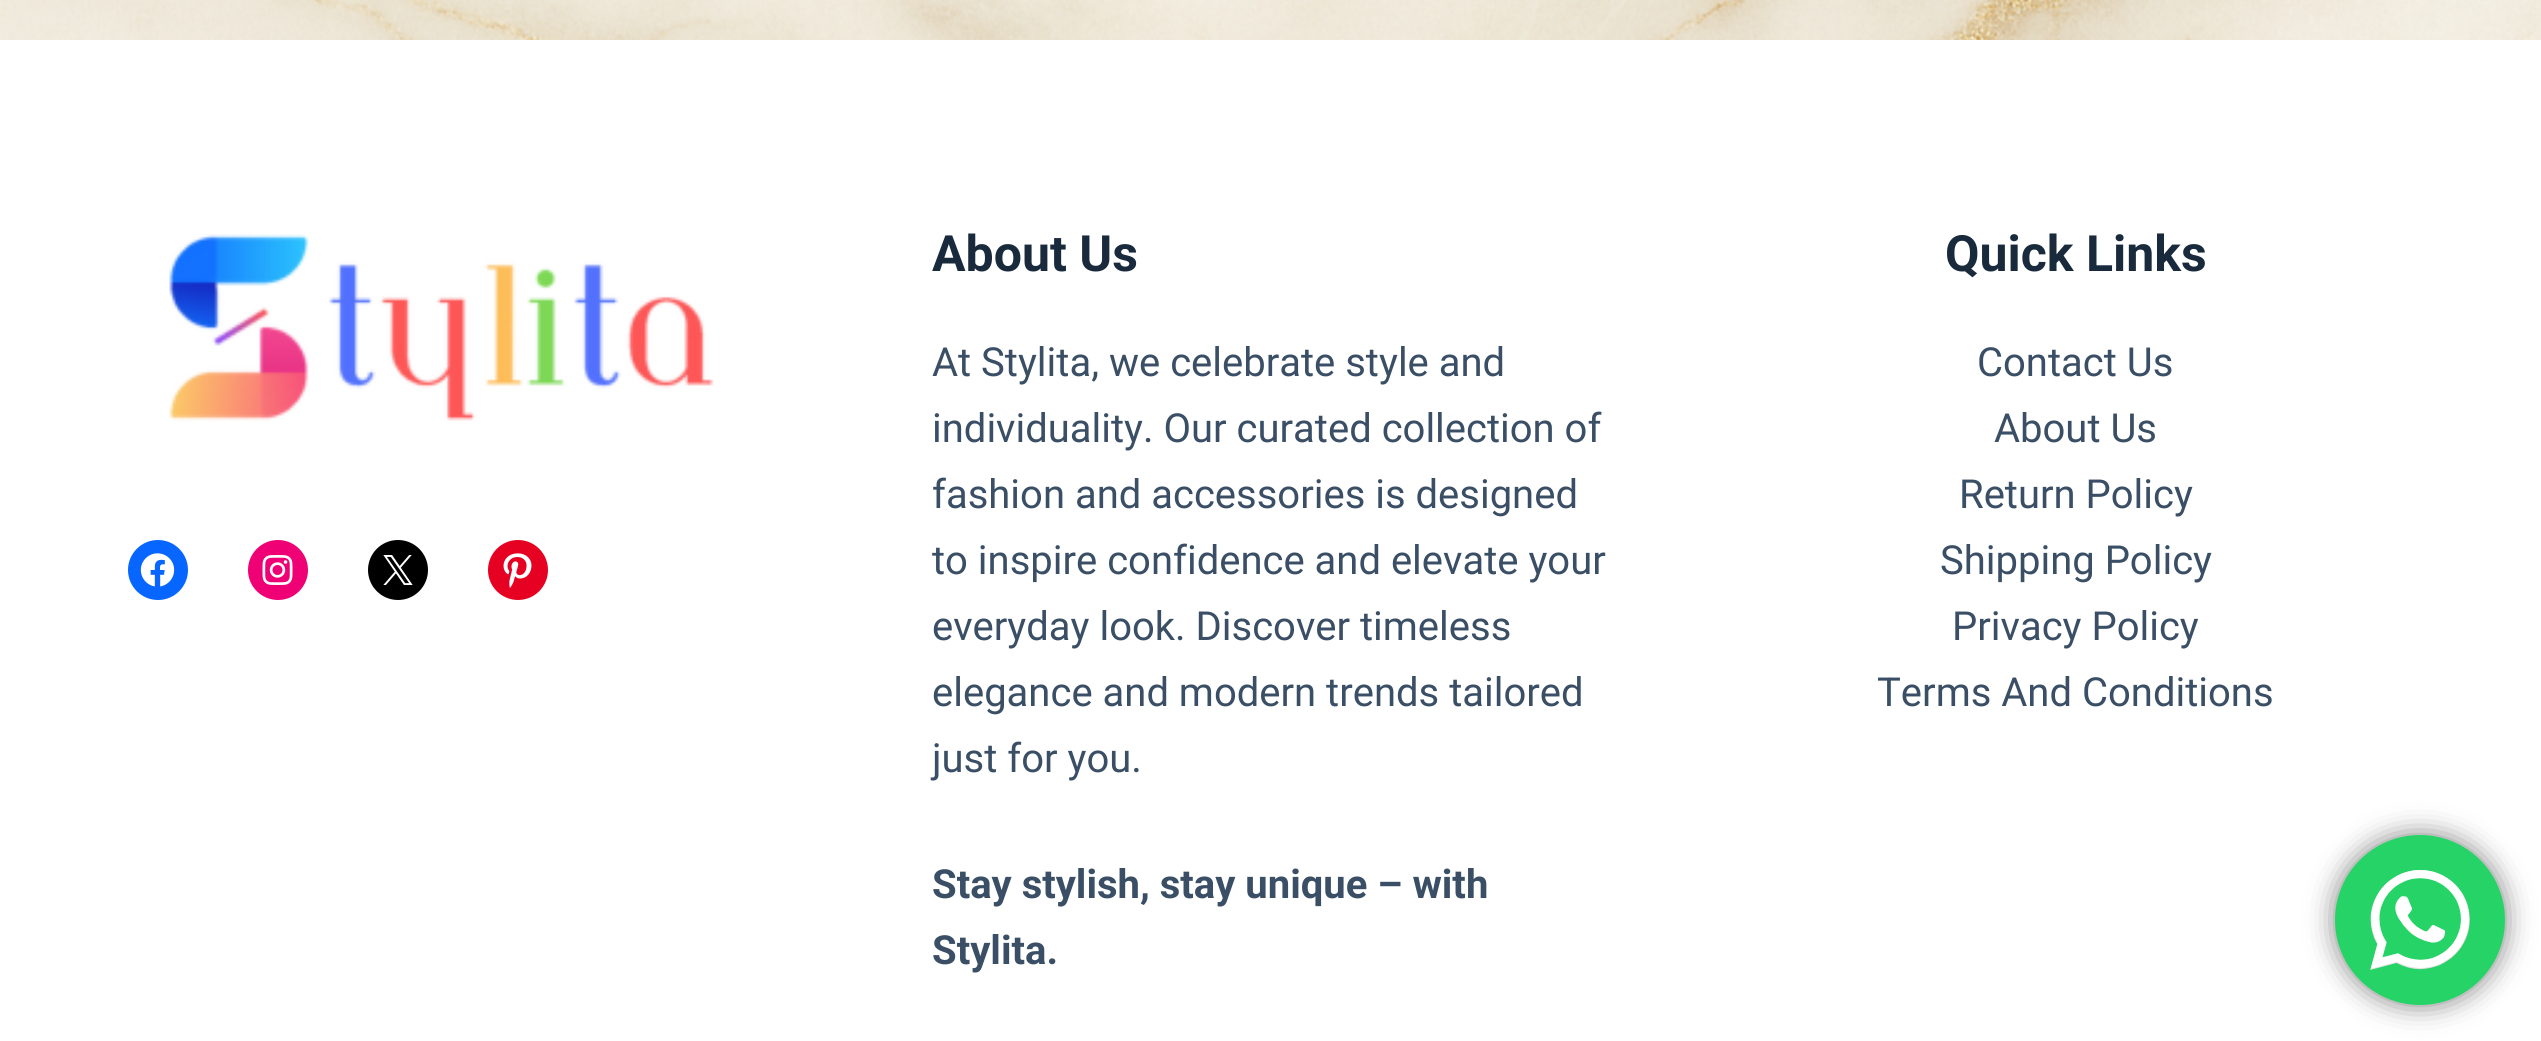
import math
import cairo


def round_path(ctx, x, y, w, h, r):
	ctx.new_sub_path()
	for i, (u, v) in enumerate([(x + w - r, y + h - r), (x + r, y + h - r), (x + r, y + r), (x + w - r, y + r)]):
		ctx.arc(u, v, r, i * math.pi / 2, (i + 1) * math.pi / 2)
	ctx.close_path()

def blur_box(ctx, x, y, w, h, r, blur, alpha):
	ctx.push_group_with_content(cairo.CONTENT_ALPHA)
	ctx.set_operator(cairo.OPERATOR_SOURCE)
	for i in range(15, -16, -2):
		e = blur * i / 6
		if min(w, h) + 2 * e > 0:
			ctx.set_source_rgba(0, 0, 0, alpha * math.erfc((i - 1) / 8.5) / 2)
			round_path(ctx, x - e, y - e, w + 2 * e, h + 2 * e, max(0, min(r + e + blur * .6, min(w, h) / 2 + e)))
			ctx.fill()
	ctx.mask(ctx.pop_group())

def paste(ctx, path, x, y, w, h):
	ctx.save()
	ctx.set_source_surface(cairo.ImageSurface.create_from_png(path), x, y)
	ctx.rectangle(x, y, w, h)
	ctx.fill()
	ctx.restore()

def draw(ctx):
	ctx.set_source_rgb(1, 1, 1)
	ctx.paint()
	paste(ctx, 'media/1.png', 0, 0, 2541, 40)
	paste(ctx, 'media/2.png', 169, 234, 545, 187)
	ctx.set_source_rgb(0.031, 0.4, 1)
	ctx.arc(158, 570, 30, 0, 2 * math.pi)
	ctx.fill()
	paste(ctx, 'media/3.png', 140, 553, 35, 34)
	ctx.set_source_rgb(0.941, 0, 0.459)
	ctx.arc(278, 570, 30, 0, 2 * math.pi)
	ctx.fill()
	paste(ctx, 'media/4.png', 262, 555, 31, 30)
	ctx.set_source_rgb(0, 0, 0)
	ctx.arc(398, 570, 30, 0, 2 * math.pi)
	ctx.fill()
	paste(ctx, 'media/5.png', 383, 555, 30, 30)
	ctx.set_source_rgb(0.902, 0.004, 0.133)
	ctx.arc(518, 570, 30, 0, 2 * math.pi)
	ctx.fill()
	paste(ctx, 'media/6.png', 503, 553, 29, 35)
	ctx.select_font_face('Roboto', cairo.FONT_SLANT_NORMAL, cairo.FONT_WEIGHT_BOLD)
	ctx.set_font_size(50)
	ctx.set_source_rgb(0.098, 0.165, 0.239)
	ctx.move_to(932, 271)
	ctx.show_text('About Us')
	ctx.select_font_face('Roboto')
	ctx.set_font_size(40)
	ctx.set_source_rgb(0.227, 0.31, 0.4)
	for x, y, s in [
		(932, 376, 'At Stylita, we celebrate style and'),
		(932, 442, 'individuality. Our curated collection of'),
		(932, 508, 'fashion and accessories is designed'),
		(932, 574, 'to inspire confidence and elevate your'),
		(932, 640, 'everyday look. Discover timeless'),
		(932, 706, 'elegance and modern trends tailored'),
		(932, 772, 'just for you.'),
	]:
		ctx.move_to(x, y)
		ctx.show_text(s)
	ctx.select_font_face('Roboto', cairo.FONT_SLANT_NORMAL, cairo.FONT_WEIGHT_BOLD)
	ctx.move_to(932, 898)
	ctx.show_text('Stay stylish, stay unique – with')
	ctx.move_to(932, 964)
	ctx.show_text('Stylita.')
	ctx.set_font_size(50)
	ctx.set_source_rgb(0.098, 0.165, 0.239)
	ctx.move_to(1945, 271)
	ctx.show_text('Quick Links')
	ctx.select_font_face('Roboto')
	ctx.set_font_size(40)
	ctx.set_source_rgb(0.227, 0.31, 0.4)
	for x, y, s in [
		(1977, 376, 'Contact Us'),
		(1994, 442, 'About Us'),
		(1959, 508, 'Return Policy'),
		(1940, 574, 'Shipping Policy'),
		(1952, 640, 'Privacy Policy'),
		(1877, 706, 'Terms And Conditions'),
	]:
		ctx.move_to(x, y)
		ctx.show_text(s)
	ctx.set_source_rgb(0, 0, 0)
	blur_box(ctx, 2335, 835, 170, 170, 85, 14, 0.5)
	ctx.set_source_rgb(0.145, 0.827, 0.4)
	ctx.arc(2420, 920, 85, 0, 2 * math.pi)
	ctx.fill()
	paste(ctx, 'media/7.png', 2370, 870, 100, 100)


surface = cairo.ImageSurface(cairo.FORMAT_RGB24, 2541, 1041)
ctx = cairo.Context(surface)
options = cairo.FontOptions()
options.set_hint_metrics(cairo.HINT_METRICS_OFF)
options.set_hint_style(cairo.HINT_STYLE_NONE)
ctx.set_font_options(options)
ctx.set_miter_limit(4)
draw(ctx)
surface.write_to_png('image.png')
